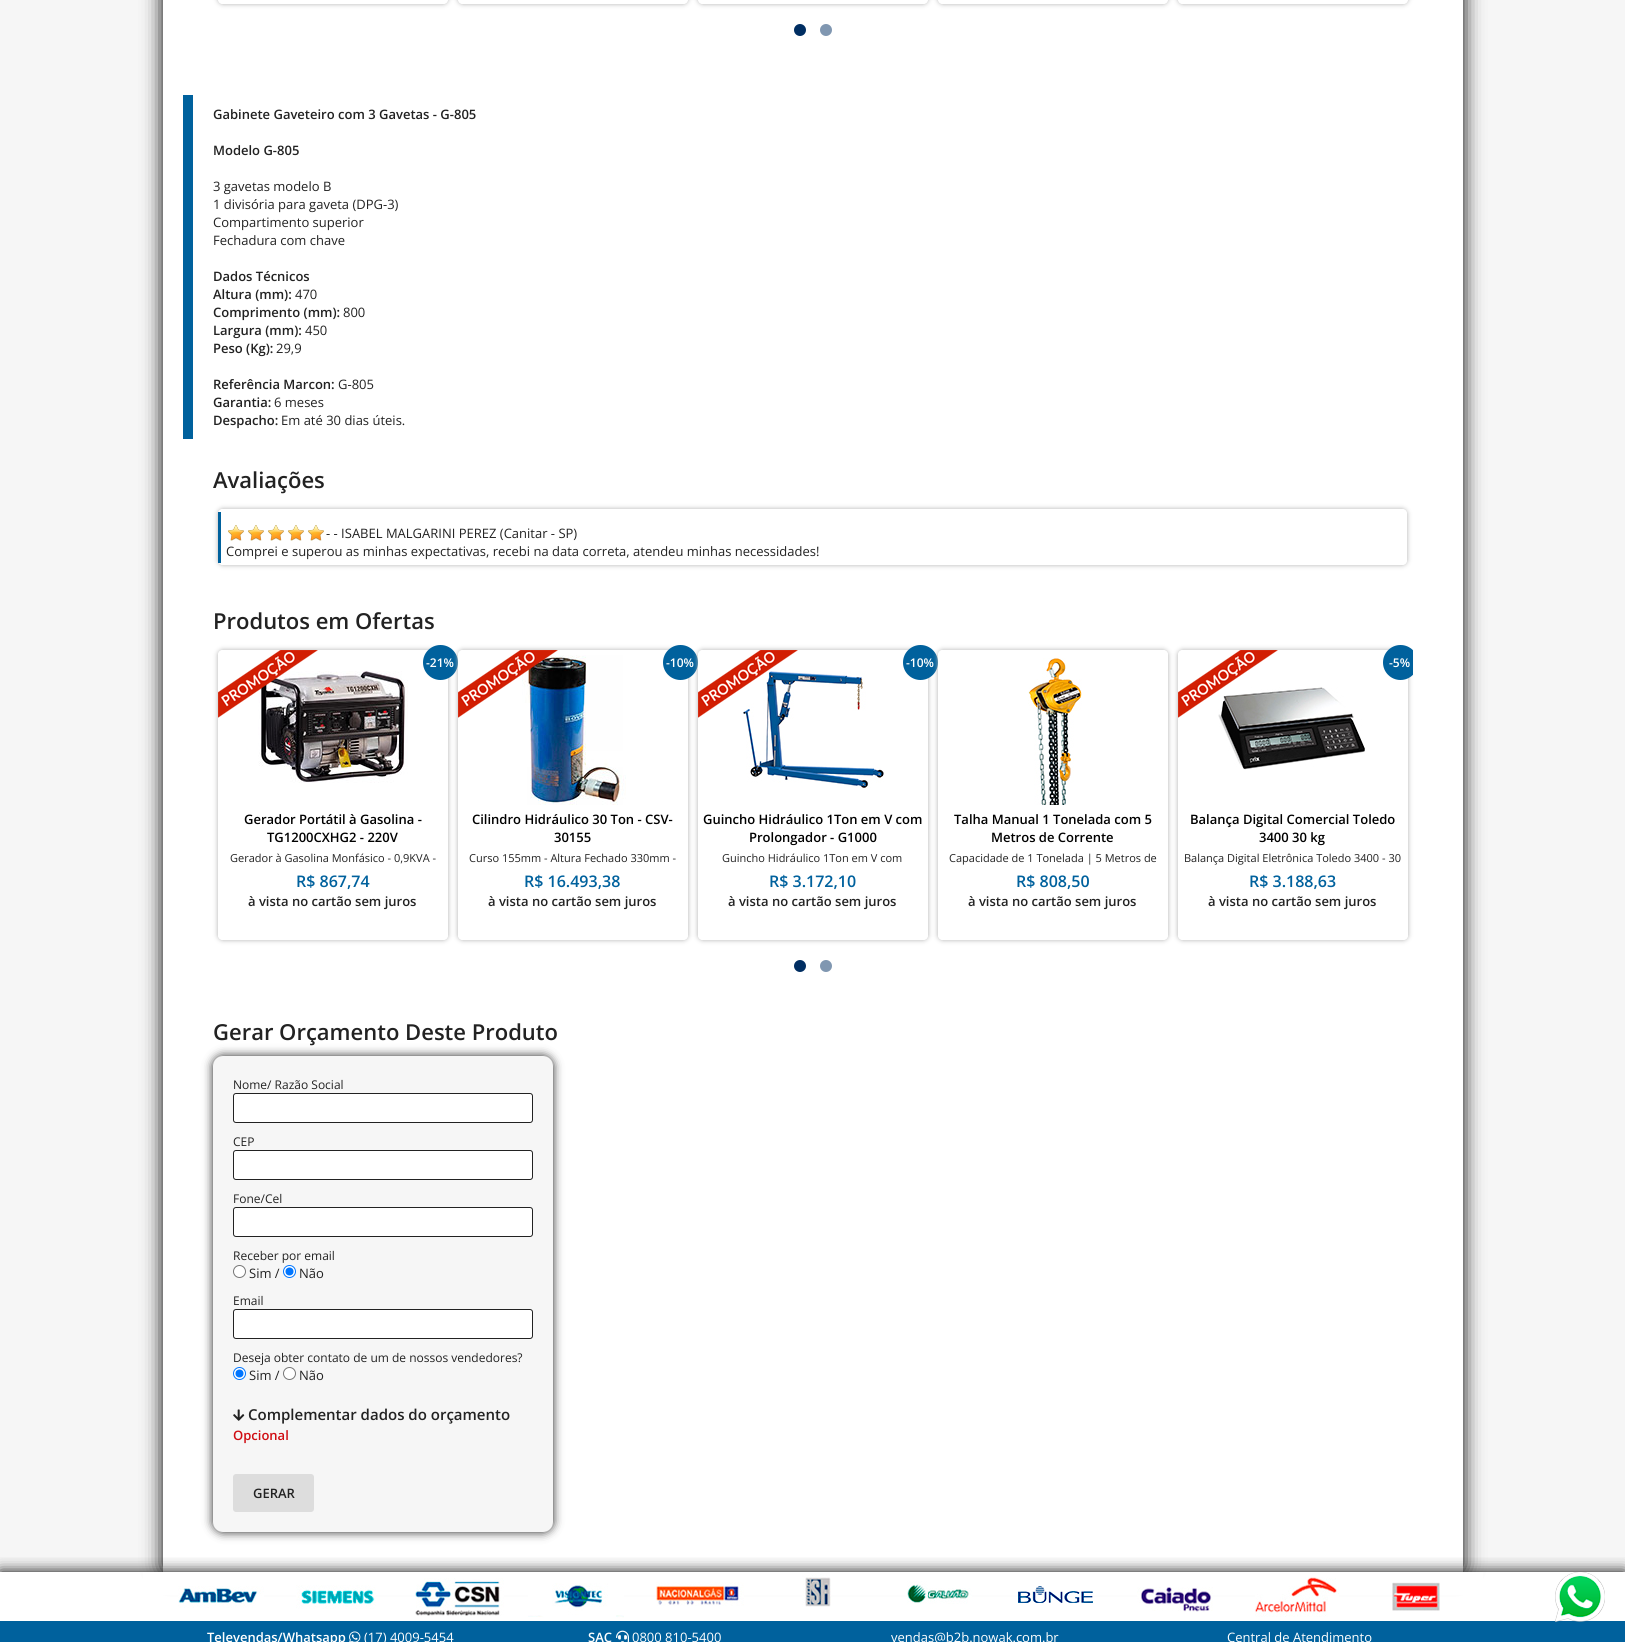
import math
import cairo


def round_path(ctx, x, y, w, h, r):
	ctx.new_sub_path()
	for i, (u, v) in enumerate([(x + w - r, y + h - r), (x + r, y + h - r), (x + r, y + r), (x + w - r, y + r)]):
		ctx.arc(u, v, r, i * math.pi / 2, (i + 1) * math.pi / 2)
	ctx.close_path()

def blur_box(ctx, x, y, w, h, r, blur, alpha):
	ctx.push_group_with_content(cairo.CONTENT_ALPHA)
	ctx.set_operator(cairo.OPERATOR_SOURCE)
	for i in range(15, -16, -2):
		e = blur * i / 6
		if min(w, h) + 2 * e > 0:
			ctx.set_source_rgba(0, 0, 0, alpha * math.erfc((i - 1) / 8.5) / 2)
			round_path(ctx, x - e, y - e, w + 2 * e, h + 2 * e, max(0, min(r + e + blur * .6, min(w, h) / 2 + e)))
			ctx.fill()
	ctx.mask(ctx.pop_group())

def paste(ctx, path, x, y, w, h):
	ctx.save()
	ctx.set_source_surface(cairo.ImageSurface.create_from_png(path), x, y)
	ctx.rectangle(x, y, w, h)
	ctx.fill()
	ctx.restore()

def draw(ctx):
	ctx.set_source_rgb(1, 1, 1)
	ctx.paint()
	ctx.set_source_rgb(0.961, 0.961, 0.961)
	ctx.rectangle(0, 0, 1625, 1572)
	ctx.fill()
	ctx.set_source_rgb(0, 0, 0)
	blur_box(ctx, 163, -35, 1300, 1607, 5, 10, 1)
	ctx.set_source_rgb(1, 1, 1)
	ctx.rectangle(163, 0, 1300, 1572)
	ctx.fill()
	ctx.save()
	ctx.set_fill_rule(cairo.FILL_RULE_EVEN_ODD)
	ctx.new_path()
	ctx.move_to(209, 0)
	ctx.line_to(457, 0)
	ctx.line_to(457, 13)
	ctx.line_to(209, 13)
	ctx.close_path()
	ctx.move_to(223, -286)
	ctx.line_to(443, -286)
	ctx.curve_to(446, -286, 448, -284, 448, -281)
	ctx.line_to(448, -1)
	ctx.curve_to(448, 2, 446, 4, 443, 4)
	ctx.line_to(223, 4)
	ctx.curve_to(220, 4, 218, 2, 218, -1)
	ctx.line_to(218, -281)
	ctx.curve_to(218, -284, 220, -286, 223, -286)
	ctx.close_path()
	ctx.clip()
	ctx.set_source_rgb(0.69, 0.69, 0.69)
	blur_box(ctx, 218, -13, 230, 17, 5, 2.5, 1)
	ctx.restore()
	ctx.save()
	ctx.set_fill_rule(cairo.FILL_RULE_EVEN_ODD)
	ctx.new_path()
	ctx.move_to(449, 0)
	ctx.line_to(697, 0)
	ctx.line_to(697, 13)
	ctx.line_to(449, 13)
	ctx.close_path()
	ctx.move_to(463, -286)
	ctx.line_to(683, -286)
	ctx.curve_to(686, -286, 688, -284, 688, -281)
	ctx.line_to(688, -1)
	ctx.curve_to(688, 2, 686, 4, 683, 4)
	ctx.line_to(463, 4)
	ctx.curve_to(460, 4, 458, 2, 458, -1)
	ctx.line_to(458, -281)
	ctx.curve_to(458, -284, 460, -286, 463, -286)
	ctx.close_path()
	ctx.clip()
	ctx.set_source_rgb(0.69, 0.69, 0.69)
	blur_box(ctx, 458, -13, 230, 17, 5, 2.5, 1)
	ctx.restore()
	ctx.save()
	ctx.set_fill_rule(cairo.FILL_RULE_EVEN_ODD)
	ctx.new_path()
	ctx.move_to(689, 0)
	ctx.line_to(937, 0)
	ctx.line_to(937, 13)
	ctx.line_to(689, 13)
	ctx.close_path()
	ctx.move_to(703, -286)
	ctx.line_to(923, -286)
	ctx.curve_to(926, -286, 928, -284, 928, -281)
	ctx.line_to(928, -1)
	ctx.curve_to(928, 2, 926, 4, 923, 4)
	ctx.line_to(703, 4)
	ctx.curve_to(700, 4, 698, 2, 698, -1)
	ctx.line_to(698, -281)
	ctx.curve_to(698, -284, 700, -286, 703, -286)
	ctx.close_path()
	ctx.clip()
	ctx.set_source_rgb(0.69, 0.69, 0.69)
	blur_box(ctx, 698, -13, 230, 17, 5, 2.5, 1)
	ctx.restore()
	ctx.save()
	ctx.set_fill_rule(cairo.FILL_RULE_EVEN_ODD)
	ctx.new_path()
	ctx.move_to(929, 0)
	ctx.line_to(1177, 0)
	ctx.line_to(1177, 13)
	ctx.line_to(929, 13)
	ctx.close_path()
	ctx.move_to(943, -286)
	ctx.line_to(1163, -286)
	ctx.curve_to(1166, -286, 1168, -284, 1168, -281)
	ctx.line_to(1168, -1)
	ctx.curve_to(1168, 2, 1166, 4, 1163, 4)
	ctx.line_to(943, 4)
	ctx.curve_to(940, 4, 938, 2, 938, -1)
	ctx.line_to(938, -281)
	ctx.curve_to(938, -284, 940, -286, 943, -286)
	ctx.close_path()
	ctx.clip()
	ctx.set_source_rgb(0.69, 0.69, 0.69)
	blur_box(ctx, 938, -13, 230, 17, 5, 2.5, 1)
	ctx.restore()
	ctx.save()
	ctx.set_fill_rule(cairo.FILL_RULE_EVEN_ODD)
	ctx.new_path()
	ctx.move_to(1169, 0)
	ctx.line_to(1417, 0)
	ctx.line_to(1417, 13)
	ctx.line_to(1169, 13)
	ctx.close_path()
	ctx.move_to(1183, -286)
	ctx.line_to(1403, -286)
	ctx.curve_to(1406, -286, 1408, -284, 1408, -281)
	ctx.line_to(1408, -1)
	ctx.curve_to(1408, 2, 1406, 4, 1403, 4)
	ctx.line_to(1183, 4)
	ctx.curve_to(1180, 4, 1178, 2, 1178, -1)
	ctx.line_to(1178, -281)
	ctx.curve_to(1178, -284, 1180, -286, 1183, -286)
	ctx.close_path()
	ctx.clip()
	ctx.set_source_rgb(0.69, 0.69, 0.69)
	blur_box(ctx, 1178, -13, 230, 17, 5, 2.5, 1)
	ctx.restore()
	ctx.set_source_rgb(0, 0.18, 0.384)
	ctx.arc(800, 30, 6, 0, 2 * math.pi)
	ctx.fill()
	ctx.set_source_rgb(0.502, 0.592, 0.694)
	ctx.arc(826, 30, 6, 0, 2 * math.pi)
	ctx.fill()
	ctx.set_source_rgb(0, 0.38, 0.616)
	ctx.rectangle(183, 95, 10, 344)
	ctx.fill()
	ctx.select_font_face('Open Sans SemiBold')
	ctx.set_font_size(13)
	ctx.set_source_rgb(0.133, 0.133, 0.133)
	ctx.move_to(213, 119)
	ctx.show_text('Gabinete Gaveteiro com 3 Gavetas - G-805')
	ctx.move_to(213, 155)
	ctx.show_text('Modelo G-805')
	ctx.select_font_face('Open Sans')
	for x, y, s in [
		(213, 191, '3 gavetas modelo B'),
		(213, 209, '1 divisória para gaveta (DPG-3)'),
		(213, 227, 'Compartimento superior'),
		(213, 245, 'Fechadura com chave'),
	]:
		ctx.move_to(x, y)
		ctx.show_text(s)
	ctx.select_font_face('Open Sans SemiBold')
	ctx.move_to(213, 281)
	ctx.show_text('Dados Técnicos')
	ctx.move_to(213, 299)
	ctx.show_text('Altura (mm):')
	ctx.select_font_face('Open Sans')
	ctx.move_to(295, 299)
	ctx.show_text('470')
	ctx.select_font_face('Open Sans SemiBold')
	ctx.move_to(213, 317)
	ctx.show_text('Comprimento (mm):')
	ctx.select_font_face('Open Sans')
	ctx.move_to(343, 317)
	ctx.show_text('800')
	ctx.select_font_face('Open Sans SemiBold')
	ctx.move_to(213, 335)
	ctx.show_text('Largura (mm):')
	ctx.select_font_face('Open Sans')
	ctx.move_to(305, 335)
	ctx.show_text('450')
	ctx.select_font_face('Open Sans SemiBold')
	ctx.move_to(213, 353)
	ctx.show_text('Peso (Kg):')
	ctx.select_font_face('Open Sans')
	ctx.move_to(276, 353)
	ctx.show_text('29,9')
	ctx.select_font_face('Open Sans SemiBold')
	ctx.move_to(213, 389)
	ctx.show_text('Referência Marcon:')
	ctx.select_font_face('Open Sans')
	ctx.move_to(338, 389)
	ctx.show_text('G-805')
	ctx.select_font_face('Open Sans SemiBold')
	ctx.move_to(213, 407)
	ctx.show_text('Garantia:')
	ctx.select_font_face('Open Sans')
	ctx.move_to(274, 407)
	ctx.show_text('6 meses')
	ctx.select_font_face('Open Sans SemiBold')
	ctx.move_to(213, 425)
	ctx.show_text('Despacho:')
	ctx.select_font_face('Open Sans')
	ctx.move_to(281, 425)
	ctx.show_text('Em até 30 dias úteis.')
	ctx.select_font_face('Open Sans SemiBold')
	ctx.set_font_size(22)
	ctx.move_to(213, 488)
	ctx.show_text('Avaliações')
	ctx.save()
	ctx.set_fill_rule(cairo.FILL_RULE_EVEN_ODD)
	ctx.new_path()
	ctx.move_to(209, 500)
	ctx.line_to(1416, 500)
	ctx.line_to(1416, 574)
	ctx.line_to(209, 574)
	ctx.close_path()
	ctx.move_to(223, 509)
	ctx.line_to(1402, 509)
	ctx.curve_to(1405, 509, 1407, 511, 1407, 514)
	ctx.line_to(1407, 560)
	ctx.curve_to(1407, 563, 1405, 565, 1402, 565)
	ctx.line_to(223, 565)
	ctx.curve_to(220, 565, 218, 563, 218, 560)
	ctx.line_to(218, 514)
	ctx.curve_to(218, 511, 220, 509, 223, 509)
	ctx.close_path()
	ctx.clip()
	ctx.set_source_rgb(0.69, 0.69, 0.69)
	blur_box(ctx, 218, 509, 1189, 56, 5, 2.5, 1)
	ctx.restore()
	ctx.set_source_rgb(0, 0.38, 0.616)
	ctx.rectangle(218, 512, 3, 51)
	ctx.fill()
	paste(ctx, 'media/1.png', 228, 525, 16, 16)
	paste(ctx, 'media/1.png', 248, 525, 16, 16)
	paste(ctx, 'media/1.png', 268, 525, 16, 16)
	paste(ctx, 'media/1.png', 288, 525, 16, 16)
	paste(ctx, 'media/1.png', 308, 525, 16, 16)
	ctx.select_font_face('Open Sans')
	ctx.set_font_size(13)
	ctx.set_source_rgb(0.133, 0.133, 0.133)
	ctx.move_to(326, 538)
	ctx.show_text('- - ISABEL MALGARINI PEREZ (Canitar - SP)')
	ctx.move_to(226, 556)
	ctx.show_text('Comprei e superou as minhas expectativas, recebi na data correta, atendeu minhas necessidades!')
	ctx.select_font_face('Open Sans SemiBold')
	ctx.set_font_size(22)
	ctx.move_to(213, 629)
	ctx.show_text('Produtos em Ofertas')
	ctx.save()
	ctx.set_fill_rule(cairo.FILL_RULE_EVEN_ODD)
	ctx.new_path()
	ctx.move_to(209, 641)
	ctx.line_to(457, 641)
	ctx.line_to(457, 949)
	ctx.line_to(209, 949)
	ctx.close_path()
	ctx.move_to(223, 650)
	ctx.line_to(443, 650)
	ctx.curve_to(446, 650, 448, 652, 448, 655)
	ctx.line_to(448, 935)
	ctx.curve_to(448, 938, 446, 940, 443, 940)
	ctx.line_to(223, 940)
	ctx.curve_to(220, 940, 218, 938, 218, 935)
	ctx.line_to(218, 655)
	ctx.curve_to(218, 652, 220, 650, 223, 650)
	ctx.close_path()
	ctx.clip()
	ctx.set_source_rgb(0.69, 0.69, 0.69)
	blur_box(ctx, 218, 650, 230, 290, 5, 2.5, 1)
	ctx.restore()
	paste(ctx, 'media/3.png', 258, 671, 150, 112)
	paste(ctx, 'media/2.png', 218, 650, 100, 68)
	ctx.set_source_rgb(0, 0.38, 0.616)
	ctx.arc(440.5, 662.5, 17.5, 0, 2 * math.pi)
	ctx.fill()
	ctx.set_font_size(12)
	ctx.set_source_rgb(1, 1, 1)
	ctx.move_to(426, 667)
	ctx.show_text('-21%')
	ctx.set_font_size(13)
	ctx.set_source_rgb(0, 0, 0)
	ctx.move_to(244, 824)
	ctx.show_text('Gerador Portátil à Gasolina -')
	ctx.move_to(267, 842)
	ctx.show_text('TG1200CXHG2 - 220V')
	ctx.select_font_face('Open Sans')
	ctx.set_font_size(11)
	ctx.set_source_rgb(0.133, 0.133, 0.133)
	ctx.move_to(230, 862)
	ctx.show_text('Gerador à Gasolina Monfásico - 0,9KVA -')
	ctx.select_font_face('Open Sans SemiBold')
	ctx.set_font_size(16)
	ctx.set_source_rgb(0, 0.38, 0.616)
	ctx.move_to(296, 887)
	ctx.show_text('R$ 867,74')
	ctx.set_font_size(13)
	ctx.set_source_rgb(0.133, 0.133, 0.133)
	ctx.move_to(248, 906)
	ctx.show_text('à vista no cartão sem juros')
	ctx.save()
	ctx.set_fill_rule(cairo.FILL_RULE_EVEN_ODD)
	ctx.new_path()
	ctx.move_to(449, 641)
	ctx.line_to(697, 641)
	ctx.line_to(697, 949)
	ctx.line_to(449, 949)
	ctx.close_path()
	ctx.move_to(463, 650)
	ctx.line_to(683, 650)
	ctx.curve_to(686, 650, 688, 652, 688, 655)
	ctx.line_to(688, 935)
	ctx.curve_to(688, 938, 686, 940, 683, 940)
	ctx.line_to(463, 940)
	ctx.curve_to(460, 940, 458, 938, 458, 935)
	ctx.line_to(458, 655)
	ctx.curve_to(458, 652, 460, 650, 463, 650)
	ctx.close_path()
	ctx.clip()
	ctx.set_source_rgb(0.69, 0.69, 0.69)
	blur_box(ctx, 458, 650, 230, 290, 5, 2.5, 1)
	ctx.restore()
	paste(ctx, 'media/5.png', 522, 655, 104, 150)
	paste(ctx, 'media/4.png', 458, 650, 100, 68)
	ctx.set_source_rgb(0, 0.38, 0.616)
	ctx.arc(680.5, 662.5, 17.5, 0, 2 * math.pi)
	ctx.fill()
	ctx.set_font_size(12)
	ctx.set_source_rgb(1, 1, 1)
	ctx.move_to(666, 667)
	ctx.show_text('-10%')
	ctx.set_font_size(13)
	ctx.set_source_rgb(0, 0, 0)
	ctx.move_to(472, 824)
	ctx.show_text('Cilindro Hidráulico 30 Ton - CSV-')
	ctx.move_to(554, 842)
	ctx.show_text('30155')
	ctx.select_font_face('Open Sans')
	ctx.set_font_size(11)
	ctx.set_source_rgb(0.133, 0.133, 0.133)
	ctx.move_to(469, 862)
	ctx.show_text('Curso 155mm - Altura Fechado 330mm -')
	ctx.select_font_face('Open Sans SemiBold')
	ctx.set_font_size(16)
	ctx.set_source_rgb(0, 0.38, 0.616)
	ctx.move_to(524, 887)
	ctx.show_text('R$ 16.493,38')
	ctx.set_font_size(13)
	ctx.set_source_rgb(0.133, 0.133, 0.133)
	ctx.move_to(488, 906)
	ctx.show_text('à vista no cartão sem juros')
	ctx.save()
	ctx.set_fill_rule(cairo.FILL_RULE_EVEN_ODD)
	ctx.new_path()
	ctx.move_to(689, 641)
	ctx.line_to(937, 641)
	ctx.line_to(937, 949)
	ctx.line_to(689, 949)
	ctx.close_path()
	ctx.move_to(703, 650)
	ctx.line_to(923, 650)
	ctx.curve_to(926, 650, 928, 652, 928, 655)
	ctx.line_to(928, 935)
	ctx.curve_to(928, 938, 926, 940, 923, 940)
	ctx.line_to(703, 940)
	ctx.curve_to(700, 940, 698, 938, 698, 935)
	ctx.line_to(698, 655)
	ctx.curve_to(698, 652, 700, 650, 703, 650)
	ctx.close_path()
	ctx.clip()
	ctx.set_source_rgb(0.69, 0.69, 0.69)
	blur_box(ctx, 698, 650, 230, 290, 5, 2.5, 1)
	ctx.restore()
	paste(ctx, 'media/7.png', 743, 671, 141, 117)
	paste(ctx, 'media/6.png', 698, 650, 100, 68)
	ctx.set_source_rgb(0, 0.38, 0.616)
	ctx.arc(920.5, 662.5, 17.5, 0, 2 * math.pi)
	ctx.fill()
	ctx.set_font_size(12)
	ctx.set_source_rgb(1, 1, 1)
	ctx.move_to(906, 667)
	ctx.show_text('-10%')
	ctx.set_font_size(13)
	ctx.set_source_rgb(0, 0, 0)
	ctx.move_to(703, 824)
	ctx.show_text('Guincho Hidráulico 1Ton em V com')
	ctx.move_to(749, 842)
	ctx.show_text('Prolongador - G1000')
	ctx.select_font_face('Open Sans')
	ctx.set_font_size(11)
	ctx.set_source_rgb(0.133, 0.133, 0.133)
	ctx.move_to(722, 862)
	ctx.show_text('Guincho Hidráulico 1Ton em V com')
	ctx.select_font_face('Open Sans SemiBold')
	ctx.set_font_size(16)
	ctx.set_source_rgb(0, 0.38, 0.616)
	ctx.move_to(769, 887)
	ctx.show_text('R$ 3.172,10')
	ctx.set_font_size(13)
	ctx.set_source_rgb(0.133, 0.133, 0.133)
	ctx.move_to(728, 906)
	ctx.show_text('à vista no cartão sem juros')
	ctx.save()
	ctx.set_fill_rule(cairo.FILL_RULE_EVEN_ODD)
	ctx.new_path()
	ctx.move_to(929, 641)
	ctx.line_to(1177, 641)
	ctx.line_to(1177, 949)
	ctx.line_to(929, 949)
	ctx.close_path()
	ctx.move_to(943, 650)
	ctx.line_to(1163, 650)
	ctx.curve_to(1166, 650, 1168, 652, 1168, 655)
	ctx.line_to(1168, 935)
	ctx.curve_to(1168, 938, 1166, 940, 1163, 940)
	ctx.line_to(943, 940)
	ctx.curve_to(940, 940, 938, 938, 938, 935)
	ctx.line_to(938, 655)
	ctx.curve_to(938, 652, 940, 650, 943, 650)
	ctx.close_path()
	ctx.clip()
	ctx.set_source_rgb(0.69, 0.69, 0.69)
	blur_box(ctx, 938, 650, 230, 290, 5, 2.5, 1)
	ctx.restore()
	paste(ctx, 'media/8.png', 1028, 658, 54, 147)
	ctx.set_source_rgb(0, 0, 0)
	ctx.move_to(954, 824)
	ctx.show_text('Talha Manual 1 Tonelada com 5')
	ctx.move_to(991, 842)
	ctx.show_text('Metros de Corrente')
	ctx.select_font_face('Open Sans')
	ctx.set_font_size(11)
	ctx.set_source_rgb(0.133, 0.133, 0.133)
	ctx.move_to(949, 862)
	ctx.show_text('Capacidade de 1 Tonelada | 5 Metros de')
	ctx.select_font_face('Open Sans SemiBold')
	ctx.set_font_size(16)
	ctx.set_source_rgb(0, 0.38, 0.616)
	ctx.move_to(1016, 887)
	ctx.show_text('R$ 808,50')
	ctx.set_font_size(13)
	ctx.set_source_rgb(0.133, 0.133, 0.133)
	ctx.move_to(968, 906)
	ctx.show_text('à vista no cartão sem juros')
	ctx.save()
	ctx.set_fill_rule(cairo.FILL_RULE_EVEN_ODD)
	ctx.new_path()
	ctx.move_to(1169, 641)
	ctx.line_to(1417, 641)
	ctx.line_to(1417, 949)
	ctx.line_to(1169, 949)
	ctx.close_path()
	ctx.move_to(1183, 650)
	ctx.line_to(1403, 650)
	ctx.curve_to(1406, 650, 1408, 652, 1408, 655)
	ctx.line_to(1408, 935)
	ctx.curve_to(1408, 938, 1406, 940, 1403, 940)
	ctx.line_to(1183, 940)
	ctx.curve_to(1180, 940, 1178, 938, 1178, 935)
	ctx.line_to(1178, 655)
	ctx.curve_to(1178, 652, 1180, 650, 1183, 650)
	ctx.close_path()
	ctx.clip()
	ctx.set_source_rgb(0.69, 0.69, 0.69)
	blur_box(ctx, 1178, 650, 230, 290, 5, 2.5, 1)
	ctx.restore()
	paste(ctx, 'media/10.png', 1218, 687, 147, 83)
	paste(ctx, 'media/9.png', 1178, 650, 100, 68)
	ctx.save()
	ctx.rectangle(213, 645, 1200, 300)
	ctx.clip()
	ctx.set_source_rgb(0, 0.38, 0.616)
	ctx.arc(1400.5, 662.5, 17.5, 0, 2 * math.pi)
	ctx.fill()
	ctx.restore()
	ctx.set_font_size(12)
	ctx.set_source_rgb(1, 1, 1)
	ctx.move_to(1389, 667)
	ctx.show_text('-5%')
	ctx.set_font_size(13)
	ctx.set_source_rgb(0, 0, 0)
	ctx.move_to(1190, 824)
	ctx.show_text('Balança Digital Comercial Toledo')
	ctx.move_to(1259, 842)
	ctx.show_text('3400 30 kg')
	ctx.select_font_face('Open Sans')
	ctx.set_font_size(11)
	ctx.set_source_rgb(0.133, 0.133, 0.133)
	ctx.move_to(1184, 862)
	ctx.show_text('Balança Digital Eletrônica Toledo 3400 - 30')
	ctx.select_font_face('Open Sans SemiBold')
	ctx.set_font_size(16)
	ctx.set_source_rgb(0, 0.38, 0.616)
	ctx.move_to(1249, 887)
	ctx.show_text('R$ 3.188,63')
	ctx.set_font_size(13)
	ctx.set_source_rgb(0.133, 0.133, 0.133)
	ctx.move_to(1208, 906)
	ctx.show_text('à vista no cartão sem juros')
	ctx.set_source_rgb(0, 0.18, 0.384)
	ctx.new_path()
	ctx.arc(800, 966, 6, 0, 2 * math.pi)
	ctx.fill()
	ctx.set_source_rgb(0.502, 0.592, 0.694)
	ctx.arc(826, 966, 6, 0, 2 * math.pi)
	ctx.fill()
	ctx.set_font_size(22)
	ctx.set_source_rgb(0.133, 0.133, 0.133)
	ctx.move_to(213, 1040)
	ctx.show_text('Gerar Orçamento Deste Produto')
	ctx.set_source_rgb(0.133, 0.133, 0.133)
	blur_box(ctx, 213, 1056, 340, 476, 10, 5, 1)
	ctx.set_source_rgb(0.961, 0.961, 0.961)
	round_path(ctx, 213, 1056, 340, 476, 10)
	ctx.fill()
	ctx.select_font_face('Open Sans')
	ctx.set_font_size(12)
	ctx.set_source_rgb(0.133, 0.133, 0.133)
	ctx.move_to(233, 1089)
	ctx.show_text('Nome/ Razão Social')
	ctx.set_source_rgb(1, 1, 1)
	round_path(ctx, 233.5, 1093.5, 299, 29, 2.5)
	ctx.fill_preserve()
	ctx.set_source_rgb(0.133, 0.133, 0.133)
	ctx.set_line_width(1)
	ctx.stroke()
	ctx.move_to(233, 1146)
	ctx.show_text('CEP')
	ctx.set_source_rgb(1, 1, 1)
	round_path(ctx, 233.5, 1150.5, 299, 29, 2.5)
	ctx.fill_preserve()
	ctx.set_source_rgb(0.133, 0.133, 0.133)
	ctx.stroke()
	ctx.move_to(233, 1203)
	ctx.show_text('Fone/Cel')
	ctx.set_source_rgb(1, 1, 1)
	round_path(ctx, 233.5, 1207.5, 299, 29, 2.5)
	ctx.fill_preserve()
	ctx.set_source_rgb(0.133, 0.133, 0.133)
	ctx.stroke()
	ctx.move_to(233, 1260)
	ctx.show_text('Receber por email')
	ctx.set_source_rgb(1, 1, 1)
	ctx.new_path()
	ctx.arc(239.5, 1271.5, 6, 0, 2 * math.pi)
	ctx.fill_preserve()
	ctx.set_source_rgb(0.463, 0.463, 0.463)
	ctx.stroke()
	ctx.set_font_size(13)
	ctx.set_source_rgb(0.133, 0.133, 0.133)
	ctx.move_to(249, 1278)
	ctx.show_text('Sim /')
	ctx.set_source_rgb(1, 1, 1)
	ctx.new_path()
	ctx.arc(289.5, 1271.5, 6, 0, 2 * math.pi)
	ctx.fill_preserve()
	ctx.set_source_rgb(0, 0.459, 1)
	ctx.stroke()
	ctx.arc(289.5, 1271.5, 4, 0, 2 * math.pi)
	ctx.fill()
	ctx.set_source_rgb(0.133, 0.133, 0.133)
	ctx.move_to(299, 1278)
	ctx.show_text('Não')
	ctx.set_font_size(12)
	ctx.move_to(233, 1305)
	ctx.show_text('Email')
	ctx.set_source_rgb(1, 1, 1)
	round_path(ctx, 233.5, 1309.5, 299, 29, 2.5)
	ctx.fill_preserve()
	ctx.set_source_rgb(0.133, 0.133, 0.133)
	ctx.stroke()
	ctx.move_to(233, 1362)
	ctx.show_text('Deseja obter contato de um de nossos vendedores?')
	ctx.set_source_rgb(1, 1, 1)
	ctx.new_path()
	ctx.arc(239.5, 1373.5, 6, 0, 2 * math.pi)
	ctx.fill_preserve()
	ctx.set_source_rgb(0, 0.459, 1)
	ctx.stroke()
	ctx.arc(239.5, 1373.5, 4, 0, 2 * math.pi)
	ctx.fill()
	ctx.set_font_size(13)
	ctx.set_source_rgb(0.133, 0.133, 0.133)
	ctx.move_to(249, 1380)
	ctx.show_text('Sim /')
	ctx.set_source_rgb(1, 1, 1)
	ctx.new_path()
	ctx.arc(289.5, 1373.5, 6, 0, 2 * math.pi)
	ctx.fill_preserve()
	ctx.set_source_rgb(0.463, 0.463, 0.463)
	ctx.stroke()
	ctx.set_source_rgb(0.133, 0.133, 0.133)
	ctx.move_to(299, 1380)
	ctx.show_text('Não')
	paste(ctx, 'media/11.png', 233, 1409, 12, 12)
	ctx.select_font_face('Open Sans SemiBold')
	ctx.set_font_size(15)
	ctx.move_to(248, 1420)
	ctx.show_text('Complementar dados do orçamento')
	ctx.set_font_size(13)
	ctx.set_source_rgb(0.816, 0.047, 0.071)
	ctx.move_to(233, 1440)
	ctx.show_text('Opcional')
	ctx.set_source_rgb(0.867, 0.867, 0.867)
	round_path(ctx, 233, 1474, 81, 38, 3)
	ctx.fill()
	ctx.set_source_rgb(0.133, 0.133, 0.133)
	ctx.move_to(253, 1498)
	ctx.show_text('GERAR')
	ctx.save()
	ctx.rectangle(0, 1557, 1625, 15)
	ctx.clip()
	ctx.set_source_rgb(0, 0, 0)
	blur_box(ctx, 0, 1572, 1625, 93, 0, 7.5, 1)
	ctx.restore()
	ctx.set_source_rgb(0, 0.38, 0.616)
	ctx.rectangle(0, 1621, 1625, 21)
	ctx.fill()
	paste(ctx, 'media/12.png', 1555, 1572, 50, 50)
	ctx.set_source_rgb(1, 1, 1)
	ctx.rectangle(143, 1572, 1340, 23)
	ctx.fill()
	paste(ctx, 'media/13.png', 178, 1586, 86, 22)
	paste(ctx, 'media/14.png', 296, 1585, 80, 24)
	paste(ctx, 'media/15.png', 415, 1578, 89, 38)
	paste(ctx, 'media/16.png', 528, 1583, 96, 35)
	paste(ctx, 'media/17.png', 656, 1582, 88, 24)
	paste(ctx, 'media/18.png', 802, 1574, 29, 33)
	paste(ctx, 'media/19.png', 907, 1581, 65, 23)
	paste(ctx, 'media/20.png', 1018, 1586, 75, 17)
	paste(ctx, 'media/21.png', 1137, 1587, 76, 25)
	paste(ctx, 'media/22.png', 1255, 1577, 84, 40)
	paste(ctx, 'media/23.png', 1392, 1582, 48, 29)
	ctx.move_to(207, 1642)
	ctx.show_text('Televendas/Whatsapp')
	paste(ctx, 'media/24.png', 349, 1631, 12, 11)
	ctx.select_font_face('Open Sans')
	ctx.move_to(364, 1642)
	ctx.show_text('(17) 4009-5454')
	ctx.select_font_face('Open Sans SemiBold')
	ctx.move_to(588, 1642)
	ctx.show_text('SAC')
	paste(ctx, 'media/25.png', 616, 1630, 13, 12)
	ctx.select_font_face('Open Sans')
	for x, y, s in [
		(632, 1642, '0800 810-5400'),
		(891, 1642, 'vendas@b2b.nowak.com.br'),
		(1227, 1642, 'Central de Atendimento'),
	]:
		ctx.move_to(x, y)
		ctx.show_text(s)


surface = cairo.ImageSurface(cairo.FORMAT_RGB24, 1625, 1642)
ctx = cairo.Context(surface)
options = cairo.FontOptions()
options.set_hint_metrics(cairo.HINT_METRICS_OFF)
options.set_hint_style(cairo.HINT_STYLE_NONE)
ctx.set_font_options(options)
ctx.set_miter_limit(4)
draw(ctx)
surface.write_to_png('image.png')
